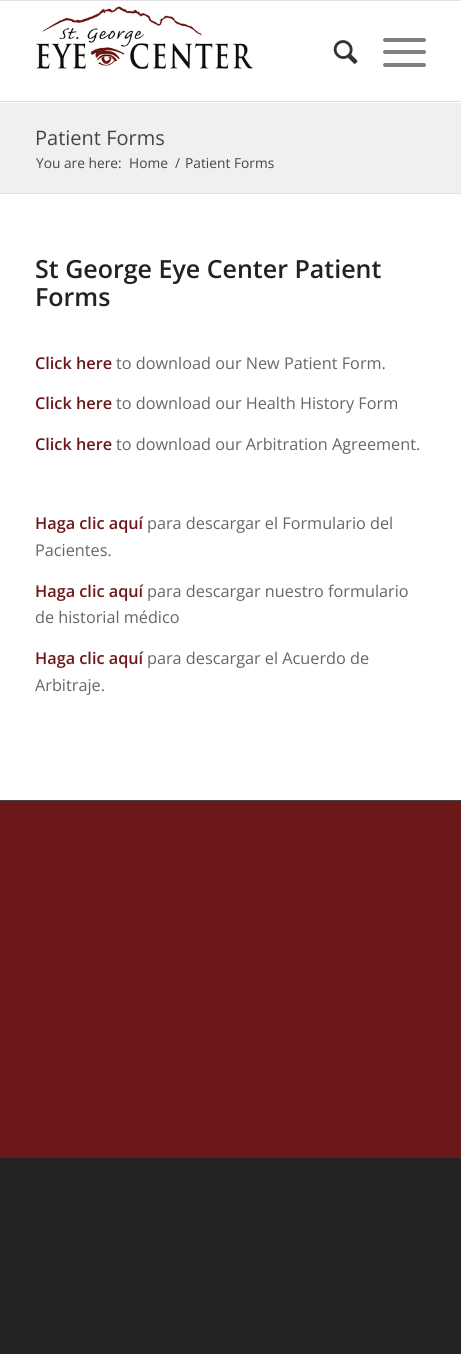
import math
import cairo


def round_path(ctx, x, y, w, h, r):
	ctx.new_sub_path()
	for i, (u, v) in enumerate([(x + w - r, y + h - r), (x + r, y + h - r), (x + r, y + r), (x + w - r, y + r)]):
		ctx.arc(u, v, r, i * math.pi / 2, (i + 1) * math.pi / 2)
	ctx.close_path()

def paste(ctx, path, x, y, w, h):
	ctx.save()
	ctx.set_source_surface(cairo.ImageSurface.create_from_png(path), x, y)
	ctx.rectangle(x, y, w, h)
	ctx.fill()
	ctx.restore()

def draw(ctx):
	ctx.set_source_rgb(0.133, 0.133, 0.133)
	ctx.paint()
	ctx.set_source_rgb(0.882, 0.882, 0.882)
	ctx.rectangle(0, 0, 461, 1)
	ctx.fill()
	ctx.set_source_rgb(1, 1, 1)
	ctx.rectangle(0, 1, 461, 102)
	ctx.fill()
	ctx.set_source_rgb(0.882, 0.882, 0.882)
	ctx.rectangle(0, 101, 461, 1)
	ctx.fill()
	paste(ctx, 'media/1.png', 36, 6, 217, 64)
	paste(ctx, 'media/2.png', 333, 40, 25, 24)
	ctx.set_source_rgb(0.502, 0.502, 0.502)
	round_path(ctx, 383, 50, 43, 4, 2)
	ctx.fill()
	round_path(ctx, 383, 38, 43, 4, 2)
	ctx.fill()
	round_path(ctx, 383, 63, 43, 4, 2)
	ctx.fill()
	ctx.set_source_rgb(1, 1, 1)
	ctx.rectangle(0, 194, 461, 606)
	ctx.fill()
	ctx.set_source_rgb(0.941, 0.941, 0.941)
	ctx.rectangle(0, 103, 461, 90)
	ctx.fill()
	ctx.select_font_face('Open Sans')
	ctx.set_font_size(20)
	ctx.set_source_rgb(0.271, 0.271, 0.271)
	ctx.move_to(35, 145)
	ctx.show_text('Patient Forms')
	ctx.set_font_size(13.75)
	for x, y, s in [
		(36, 168, 'You are here:'),
		(129, 168, 'Home'),
		(175, 168, '/'),
		(185, 168, 'Patient Forms'),
	]:
		ctx.move_to(x, y)
		ctx.show_text(s)
	ctx.set_source_rgb(0.882, 0.882, 0.882)
	ctx.rectangle(0, 193, 461, 1)
	ctx.fill()
	ctx.select_font_face('Open Sans SemiBold')
	ctx.set_font_size(25)
	ctx.set_source_rgb(0.133, 0.133, 0.133)
	ctx.move_to(35, 278)
	ctx.show_text('St George Eye Center Patient')
	ctx.move_to(35, 306)
	ctx.show_text('Forms')
	ctx.set_font_size(16.25)
	ctx.set_source_rgb(0.424, 0.094, 0.102)
	ctx.move_to(35, 369)
	ctx.show_text('Click here')
	ctx.select_font_face('Open Sans')
	ctx.set_source_rgb(0.4, 0.4, 0.4)
	ctx.move_to(116, 369)
	ctx.show_text('to download our New Patient Form.')
	ctx.select_font_face('Open Sans SemiBold')
	ctx.set_source_rgb(0.424, 0.094, 0.102)
	ctx.move_to(35, 409)
	ctx.show_text('Click here')
	ctx.select_font_face('Open Sans')
	ctx.set_source_rgb(0.4, 0.4, 0.4)
	ctx.move_to(116, 409)
	ctx.show_text('to download our Health History Form')
	ctx.select_font_face('Open Sans SemiBold')
	ctx.set_source_rgb(0.424, 0.094, 0.102)
	ctx.move_to(35, 450)
	ctx.show_text('Click here')
	ctx.select_font_face('Open Sans')
	ctx.set_source_rgb(0.4, 0.4, 0.4)
	ctx.move_to(116, 450)
	ctx.show_text('to download our Arbitration Agreement.')
	ctx.select_font_face('Open Sans SemiBold')
	ctx.set_source_rgb(0.424, 0.094, 0.102)
	ctx.move_to(35, 529)
	ctx.show_text('Haga clic aquí')
	ctx.select_font_face('Open Sans')
	ctx.set_source_rgb(0.4, 0.4, 0.4)
	ctx.move_to(147, 529)
	ctx.show_text('para descargar el Formulario del')
	ctx.move_to(35, 556)
	ctx.show_text('Pacientes.')
	ctx.select_font_face('Open Sans SemiBold')
	ctx.set_source_rgb(0.424, 0.094, 0.102)
	ctx.move_to(35, 597)
	ctx.show_text('Haga clic aquí')
	ctx.select_font_face('Open Sans')
	ctx.set_source_rgb(0.4, 0.4, 0.4)
	ctx.move_to(147, 597)
	ctx.show_text('para descargar nuestro formulario')
	ctx.move_to(35, 623)
	ctx.show_text('de historial médico')
	ctx.select_font_face('Open Sans SemiBold')
	ctx.set_source_rgb(0.424, 0.094, 0.102)
	ctx.move_to(35, 664)
	ctx.show_text('Haga clic aquí')
	ctx.select_font_face('Open Sans')
	ctx.set_source_rgb(0.4, 0.4, 0.4)
	ctx.move_to(147, 664)
	ctx.show_text('para descargar el Acuerdo de')
	ctx.move_to(35, 691)
	ctx.show_text('Arbitraje.')
	ctx.set_source_rgb(0.427, 0.094, 0.094)
	ctx.rectangle(0, 801, 461, 357)
	ctx.fill()
	ctx.set_source_rgb(0.267, 0.267, 0.267)
	ctx.rectangle(0, 800, 461, 1)
	ctx.fill()


surface = cairo.ImageSurface(cairo.FORMAT_RGB24, 461, 1354)
ctx = cairo.Context(surface)
options = cairo.FontOptions()
options.set_hint_metrics(cairo.HINT_METRICS_OFF)
options.set_hint_style(cairo.HINT_STYLE_NONE)
ctx.set_font_options(options)
ctx.set_miter_limit(4)
draw(ctx)
surface.write_to_png('image.png')
